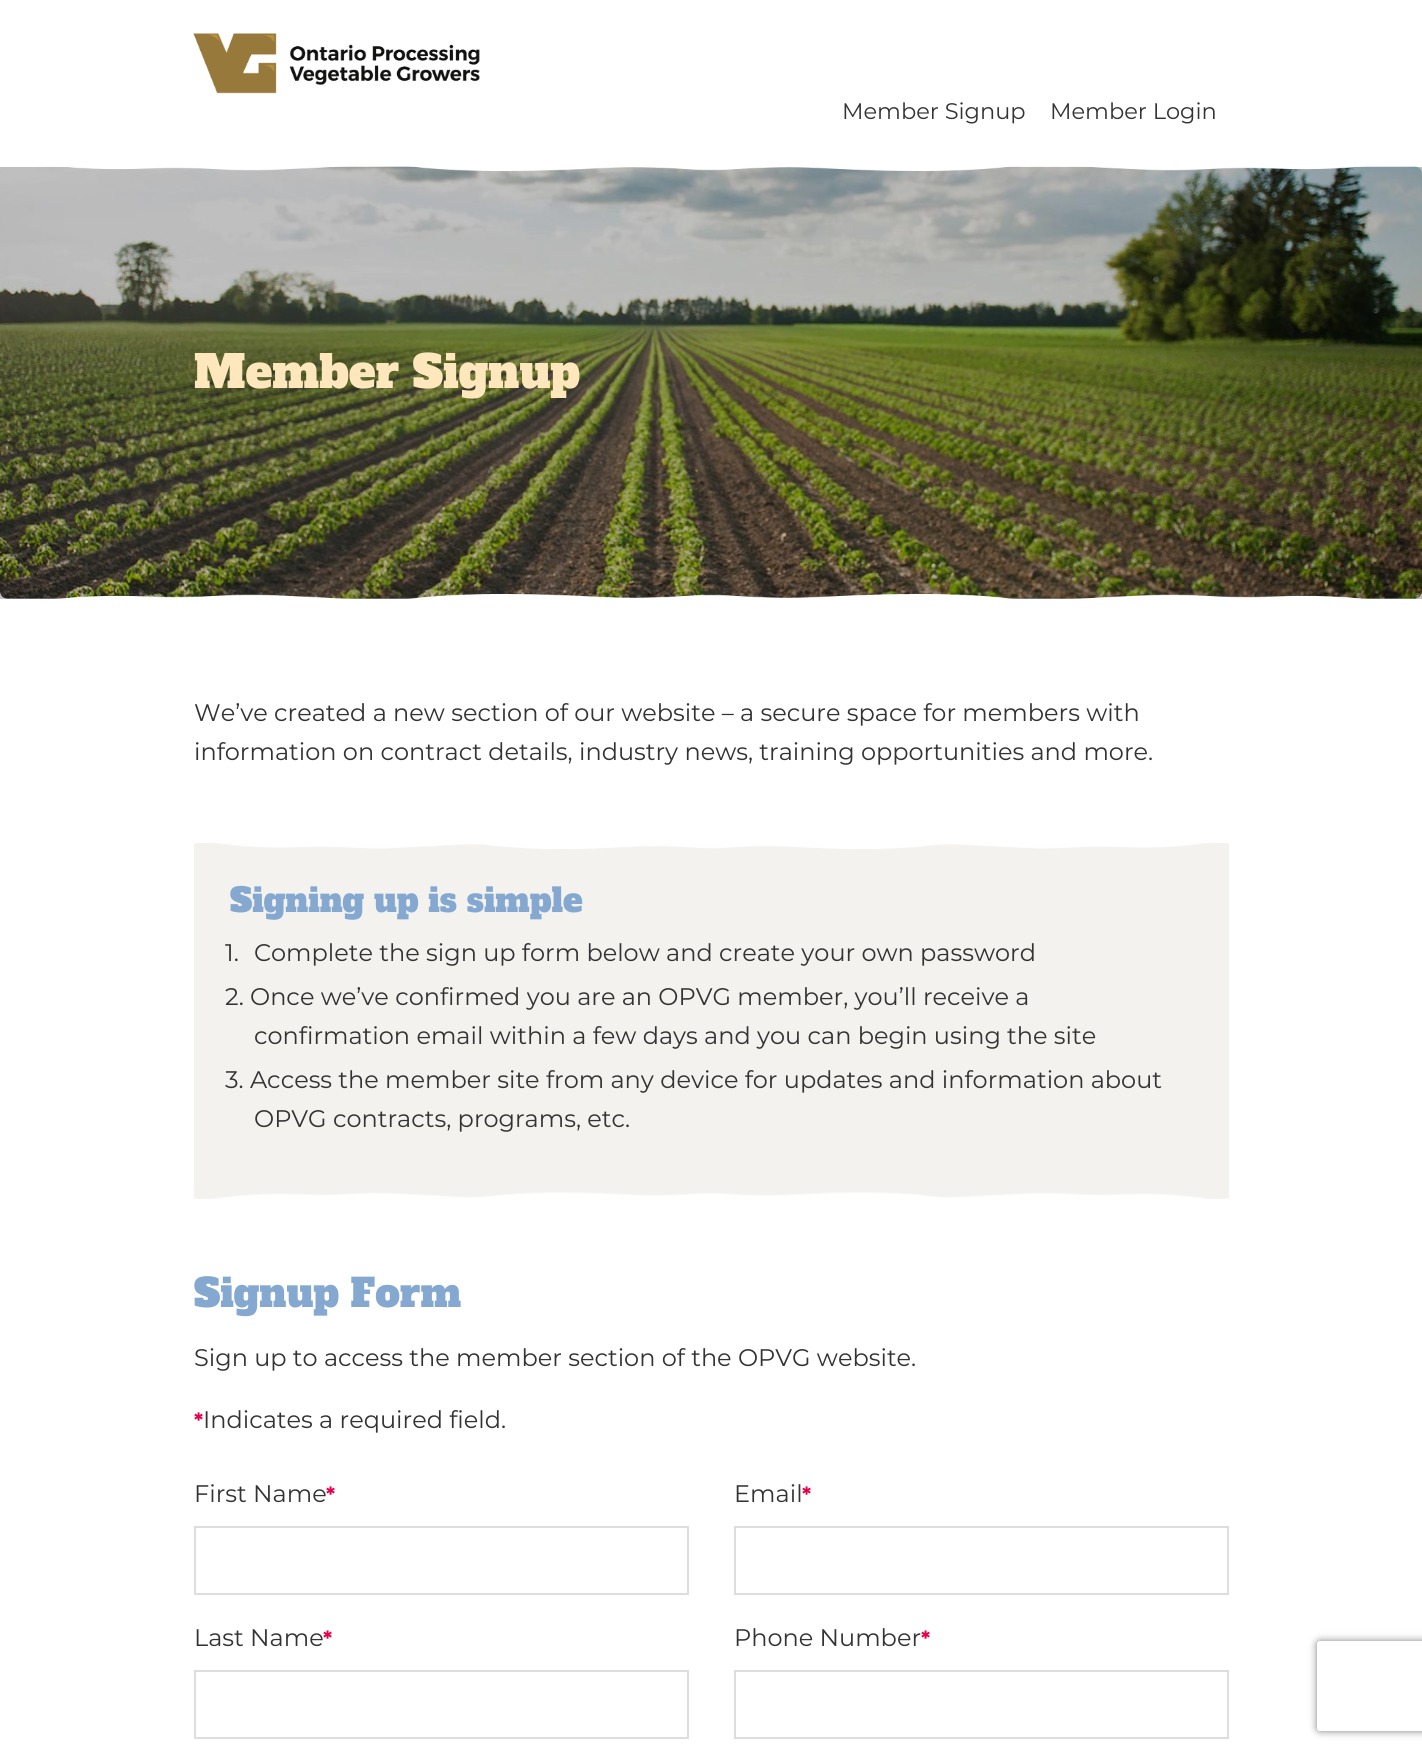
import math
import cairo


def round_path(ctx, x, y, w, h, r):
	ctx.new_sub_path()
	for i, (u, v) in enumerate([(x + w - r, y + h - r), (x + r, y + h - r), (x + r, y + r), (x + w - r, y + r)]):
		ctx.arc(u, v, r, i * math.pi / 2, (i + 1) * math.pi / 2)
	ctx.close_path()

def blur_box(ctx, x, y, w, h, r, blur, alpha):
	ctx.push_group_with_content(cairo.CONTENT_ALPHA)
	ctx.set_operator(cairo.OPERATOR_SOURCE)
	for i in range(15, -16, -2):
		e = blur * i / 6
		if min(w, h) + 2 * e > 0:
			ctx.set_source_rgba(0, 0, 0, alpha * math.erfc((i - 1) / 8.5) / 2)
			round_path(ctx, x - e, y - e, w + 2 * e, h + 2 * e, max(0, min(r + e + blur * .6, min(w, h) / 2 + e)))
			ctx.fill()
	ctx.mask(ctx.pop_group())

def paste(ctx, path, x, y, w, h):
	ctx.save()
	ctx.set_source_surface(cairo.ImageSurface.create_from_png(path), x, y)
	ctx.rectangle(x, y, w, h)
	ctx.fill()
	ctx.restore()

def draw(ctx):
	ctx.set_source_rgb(1, 1, 1)
	ctx.paint()
	ctx.set_source_rgb(0.749, 0.749, 0.749)
	ctx.rectangle(0, 167, 1422, 432)
	ctx.fill()
	paste(ctx, 'media/1.png', 193, 33, 287, 61)
	ctx.select_font_face('Montserrat')
	ctx.set_font_size(22.5)
	ctx.set_source_rgb(0.2, 0.2, 0.2)
	ctx.move_to(842, 119)
	ctx.show_text('Member Signup')
	ctx.move_to(1050, 119)
	ctx.show_text('Member Login')
	ctx.set_source_rgb(0.651, 0.651, 0.651)
	round_path(ctx, 0, 167, 1422, 432, 8)
	ctx.fill()
	paste(ctx, 'media/2.png', 0, 166, 1422, 433)
	paste(ctx, 'media/3.png', 68, 166, 1298, 5)
	ctx.select_font_face('Alfa Slab One')
	ctx.set_font_size(45)
	ctx.set_source_rgb(1, 0.906, 0.741)
	ctx.move_to(194, 388)
	ctx.show_text('Member Signup')
	paste(ctx, 'media/4.png', 54, 594, 1314, 5)
	ctx.select_font_face('Montserrat')
	ctx.set_font_size(24)
	ctx.set_source_rgb(0.2, 0.2, 0.2)
	ctx.move_to(194, 721)
	ctx.show_text('We’ve created a new section of our website – a secure space for members with')
	ctx.move_to(194, 760)
	ctx.show_text('information on contract details, industry news, training opportunities and more.')
	ctx.set_source_rgb(0.953, 0.949, 0.937)
	ctx.rectangle(194, 843, 1035, 356)
	ctx.fill()
	paste(ctx, 'media/5.png', 194, 843, 1035, 6)
	ctx.select_font_face('Alfa Slab One')
	ctx.set_font_size(33)
	ctx.set_source_rgb(0.518, 0.659, 0.812)
	ctx.move_to(230, 912)
	ctx.show_text('Signing up is simple')
	ctx.select_font_face('Montserrat')
	ctx.set_font_size(24)
	ctx.set_source_rgb(0.2, 0.2, 0.2)
	for x, y, s in [
		(225, 961, '1.'),
		(254, 961, 'Complete the sign up form below and create your own password'),
		(225, 1005, '2. Once we’ve confirmed you are an OPVG member, you’ll receive a'),
		(254, 1044, 'confirmation email within a few days and you can begin using the site'),
		(225, 1088, '3. Access the member site from any device for updates and information about'),
		(254, 1127, 'OPVG contracts, programs, etc.'),
	]:
		ctx.move_to(x, y)
		ctx.show_text(s)
	paste(ctx, 'media/6.png', 194, 1192, 1035, 7)
	ctx.select_font_face('Alfa Slab One')
	ctx.set_font_size(39)
	ctx.set_source_rgb(0.518, 0.659, 0.812)
	ctx.move_to(194, 1307)
	ctx.show_text('Signup Form')
	ctx.select_font_face('Montserrat')
	ctx.set_font_size(24)
	ctx.set_source_rgb(0.2, 0.2, 0.2)
	ctx.move_to(194, 1366)
	ctx.show_text('Sign up to access the member section of the OPVG website.')
	ctx.select_font_face('Montserrat', cairo.FONT_SLANT_NORMAL, cairo.FONT_WEIGHT_BOLD)
	ctx.set_font_size(21)
	ctx.set_source_rgb(0.906, 0, 0.298)
	ctx.move_to(194, 1428)
	ctx.show_text('*')
	ctx.select_font_face('Montserrat')
	ctx.set_font_size(24)
	ctx.set_source_rgb(0.2, 0.2, 0.2)
	ctx.move_to(203, 1428)
	ctx.show_text('Indicates a required field.')
	ctx.move_to(194, 1502)
	ctx.show_text('First Name')
	ctx.select_font_face('Montserrat', cairo.FONT_SLANT_NORMAL, cairo.FONT_WEIGHT_BOLD)
	ctx.set_font_size(21)
	ctx.set_source_rgb(0.906, 0, 0.298)
	ctx.move_to(326, 1502)
	ctx.show_text('*')
	ctx.rectangle(195, 1527, 493, 67)
	ctx.set_source_rgb(0.867, 0.867, 0.867)
	ctx.stroke()
	ctx.select_font_face('Montserrat')
	ctx.set_font_size(24)
	ctx.set_source_rgb(0.2, 0.2, 0.2)
	ctx.move_to(194, 1646)
	ctx.show_text('Last Name')
	ctx.select_font_face('Montserrat', cairo.FONT_SLANT_NORMAL, cairo.FONT_WEIGHT_BOLD)
	ctx.set_font_size(21)
	ctx.set_source_rgb(0.906, 0, 0.298)
	ctx.move_to(323, 1646)
	ctx.show_text('*')
	ctx.rectangle(195, 1671, 493, 67)
	ctx.set_source_rgb(0.867, 0.867, 0.867)
	ctx.stroke()
	ctx.select_font_face('Montserrat')
	ctx.set_font_size(24)
	ctx.set_source_rgb(0.2, 0.2, 0.2)
	ctx.move_to(734, 1502)
	ctx.show_text('Email')
	ctx.select_font_face('Montserrat', cairo.FONT_SLANT_NORMAL, cairo.FONT_WEIGHT_BOLD)
	ctx.set_font_size(21)
	ctx.set_source_rgb(0.906, 0, 0.298)
	ctx.move_to(802, 1502)
	ctx.show_text('*')
	ctx.rectangle(735, 1527, 493, 67)
	ctx.set_source_rgb(0.867, 0.867, 0.867)
	ctx.stroke()
	ctx.select_font_face('Montserrat')
	ctx.set_font_size(24)
	ctx.set_source_rgb(0.2, 0.2, 0.2)
	ctx.move_to(734, 1646)
	ctx.show_text('Phone Number')
	ctx.select_font_face('Montserrat', cairo.FONT_SLANT_NORMAL, cairo.FONT_WEIGHT_BOLD)
	ctx.set_font_size(21)
	ctx.set_source_rgb(0.906, 0, 0.298)
	ctx.move_to(921, 1646)
	ctx.show_text('*')
	ctx.rectangle(735, 1671, 493, 67)
	ctx.set_source_rgb(0.867, 0.867, 0.867)
	ctx.stroke()
	ctx.save()
	ctx.set_fill_rule(cairo.FILL_RULE_EVEN_ODD)
	ctx.new_path()
	ctx.move_to(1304, 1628)
	ctx.line_to(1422, 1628)
	ctx.line_to(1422, 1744)
	ctx.line_to(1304, 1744)
	ctx.close_path()
	ctx.move_to(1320, 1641)
	ctx.line_to(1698, 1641)
	ctx.curve_to(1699.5, 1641, 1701, 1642.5, 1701, 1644)
	ctx.line_to(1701, 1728)
	ctx.curve_to(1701, 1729.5, 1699.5, 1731, 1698, 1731)
	ctx.line_to(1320, 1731)
	ctx.curve_to(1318.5, 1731, 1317, 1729.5, 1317, 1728)
	ctx.line_to(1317, 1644)
	ctx.curve_to(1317, 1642.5, 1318.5, 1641, 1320, 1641)
	ctx.close_path()
	ctx.clip()
	ctx.set_source_rgb(0.502, 0.502, 0.502)
	blur_box(ctx, 1317, 1641, 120, 90, 3, 4, 1)
	ctx.restore()


surface = cairo.ImageSurface(cairo.FORMAT_RGB24, 1422, 1752)
ctx = cairo.Context(surface)
options = cairo.FontOptions()
options.set_hint_metrics(cairo.HINT_METRICS_OFF)
options.set_hint_style(cairo.HINT_STYLE_NONE)
ctx.set_font_options(options)
ctx.set_miter_limit(4)
draw(ctx)
surface.write_to_png('image.png')
